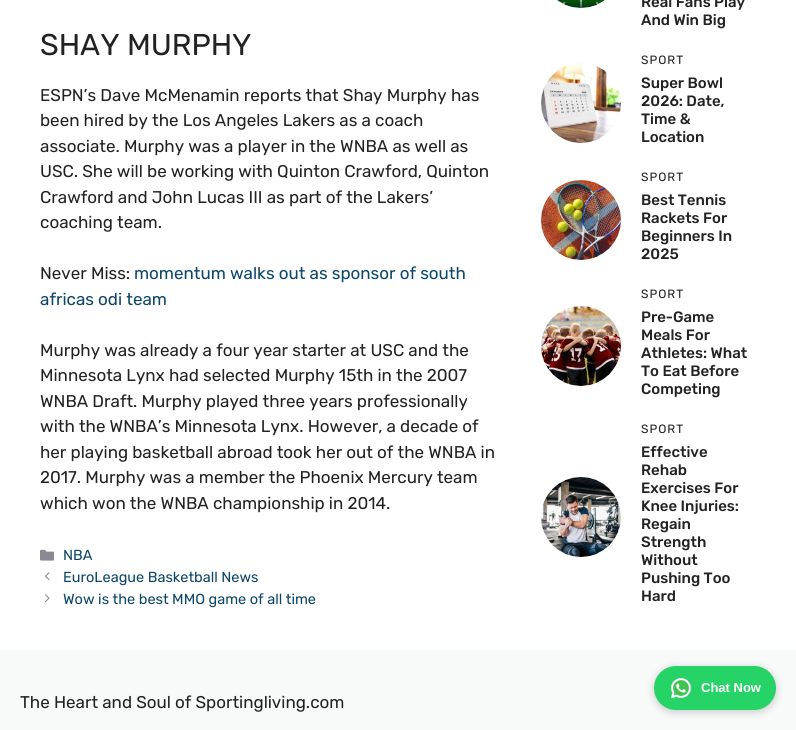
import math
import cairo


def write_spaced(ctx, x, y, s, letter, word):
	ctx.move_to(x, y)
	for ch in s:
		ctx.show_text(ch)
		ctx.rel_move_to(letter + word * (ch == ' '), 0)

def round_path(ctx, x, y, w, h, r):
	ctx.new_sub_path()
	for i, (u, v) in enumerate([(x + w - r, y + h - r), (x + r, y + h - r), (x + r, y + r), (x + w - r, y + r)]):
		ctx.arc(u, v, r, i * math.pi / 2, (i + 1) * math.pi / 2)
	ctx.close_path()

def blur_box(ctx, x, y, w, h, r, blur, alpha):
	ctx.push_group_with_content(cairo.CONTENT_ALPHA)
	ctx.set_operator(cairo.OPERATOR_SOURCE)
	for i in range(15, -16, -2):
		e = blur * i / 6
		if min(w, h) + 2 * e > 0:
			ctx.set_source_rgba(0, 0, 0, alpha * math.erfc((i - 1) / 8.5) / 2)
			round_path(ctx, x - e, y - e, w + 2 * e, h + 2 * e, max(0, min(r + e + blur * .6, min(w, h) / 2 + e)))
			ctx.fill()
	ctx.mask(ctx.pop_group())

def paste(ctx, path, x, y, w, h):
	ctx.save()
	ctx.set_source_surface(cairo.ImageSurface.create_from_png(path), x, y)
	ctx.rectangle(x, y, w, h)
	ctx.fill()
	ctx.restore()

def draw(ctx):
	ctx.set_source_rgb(1, 1, 1)
	ctx.paint()
	ctx.select_font_face('Rubik')
	ctx.set_font_size(30)
	ctx.set_source_rgb(0.133, 0.133, 0.133)
	ctx.move_to(40, 55)
	ctx.show_text('SHAY MURPHY')
	ctx.set_font_size(17)
	for x, y, s in [
		(40, 101, 'ESPN’s Dave McMenamin reports that Shay Murphy has'),
		(40, 126, 'been hired by the Los Angeles Lakers as a coach'),
		(40, 152, 'associate. Murphy was a player in the WNBA as well as'),
		(40, 177, 'USC. She will be working with Quinton Crawford, Quinton'),
		(40, 203, 'Crawford and John Lucas III as part of the Lakers’'),
		(40, 228, 'coaching team.'),
		(40, 279, 'Never Miss:'),
	]:
		ctx.move_to(x, y)
		ctx.show_text(s)
	ctx.set_source_rgb(0.047, 0.278, 0.404)
	ctx.move_to(134, 279)
	ctx.show_text('momentum walks out as sponsor of south')
	ctx.move_to(40, 305)
	ctx.show_text('africas odi team')
	ctx.set_source_rgb(0.133, 0.133, 0.133)
	for x, y, s in [
		(40, 356, 'Murphy was already a four year starter at USC and the'),
		(40, 381, 'Minnesota Lynx had selected Murphy 15th in the 2007'),
		(40, 407, 'WNBA Draft. Murphy played three years professionally'),
		(40, 432, 'with the WNBA’s Minnesota Lynx. However, a decade of'),
		(40, 458, 'her playing basketball abroad took her out of the WNBA in'),
		(40, 483, '2017. Murphy was a member the Phoenix Mercury team'),
		(40, 509, 'which won the WNBA championship in 2014.'),
	]:
		ctx.move_to(x, y)
		ctx.show_text(s)
	paste(ctx, 'media/1.png', 40, 549, 14, 12)
	ctx.set_font_size(14.5)
	ctx.set_source_rgb(0.047, 0.278, 0.404)
	ctx.move_to(63, 560)
	ctx.show_text('NBA')
	paste(ctx, 'media/2.png', 45, 572, 5, 9)
	ctx.move_to(63, 582)
	ctx.show_text('EuroLeague Basketball News')
	paste(ctx, 'media/3.png', 45, 594, 5, 9)
	ctx.move_to(63, 604)
	ctx.show_text('Wow is the best MMO game of all time')
	paste(ctx, 'media/4.png', 557, 0, 48, 8)
	ctx.select_font_face('Rubik Medium')
	ctx.set_font_size(15)
	ctx.set_source_rgb(0.133, 0.133, 0.133)
	ctx.move_to(641, 7)
	ctx.show_text('Real Fans Play')
	ctx.move_to(641, 25)
	ctx.show_text('And Win Big')
	paste(ctx, 'media/5.png', 541, 63, 80, 80)
	ctx.select_font_face('Rubik')
	ctx.set_font_size(12)
	write_spaced(ctx, 641, 64, 'SPORT', 1, 0)
	ctx.select_font_face('Rubik Medium')
	ctx.set_font_size(15)
	for x, y, s in [
		(641, 88, 'Super Bowl'),
		(641, 106, '2026: Date,'),
		(641, 124, 'Time &'),
		(641, 142, 'Location'),
	]:
		ctx.move_to(x, y)
		ctx.show_text(s)
	paste(ctx, 'media/6.png', 541, 180, 80, 80)
	ctx.select_font_face('Rubik')
	ctx.set_font_size(12)
	write_spaced(ctx, 641, 181, 'SPORT', 1, 0)
	ctx.select_font_face('Rubik Medium')
	ctx.set_font_size(15)
	for x, y, s in [
		(641, 205, 'Best Tennis'),
		(641, 223, 'Rackets For'),
		(641, 241, 'Beginners In'),
		(641, 259, '2025'),
	]:
		ctx.move_to(x, y)
		ctx.show_text(s)
	paste(ctx, 'media/7.png', 541, 306, 80, 80)
	ctx.select_font_face('Rubik')
	ctx.set_font_size(12)
	write_spaced(ctx, 641, 298, 'SPORT', 1, 0)
	ctx.select_font_face('Rubik Medium')
	ctx.set_font_size(15)
	for x, y, s in [
		(641, 322, 'Pre-Game'),
		(641, 340, 'Meals For'),
		(641, 358, 'Athletes: What'),
		(641, 376, 'To Eat Before'),
		(641, 394, 'Competing'),
	]:
		ctx.move_to(x, y)
		ctx.show_text(s)
	paste(ctx, 'media/8.png', 541, 477, 80, 80)
	ctx.select_font_face('Rubik')
	ctx.set_font_size(12)
	write_spaced(ctx, 641, 433, 'SPORT', 1, 0)
	ctx.select_font_face('Rubik Medium')
	ctx.set_font_size(15)
	for x, y, s in [
		(641, 457, 'Effective'),
		(641, 475, 'Rehab'),
		(641, 493, 'Exercises For'),
		(641, 511, 'Knee Injuries:'),
		(641, 529, 'Regain'),
		(641, 547, 'Strength'),
		(641, 565, 'Without'),
		(641, 583, 'Pushing Too'),
		(641, 601, 'Hard'),
	]:
		ctx.move_to(x, y)
		ctx.show_text(s)
	ctx.set_source_rgb(0.969, 0.973, 0.976)
	ctx.rectangle(0, 650, 796, 80)
	ctx.fill()
	ctx.set_source_rgb(0, 0, 0)
	blur_box(ctx, 654, 668, 122, 44, 22, 4, 0.2)
	ctx.set_source_rgb(0.145, 0.827, 0.4)
	round_path(ctx, 654, 666, 122, 44, 22)
	ctx.fill()
	paste(ctx, 'media/9.png', 671, 678, 20, 21)
	ctx.select_font_face('Liberation Sans', cairo.FONT_SLANT_NORMAL, cairo.FONT_WEIGHT_BOLD)
	ctx.set_font_size(13)
	ctx.set_source_rgb(1, 1, 1)
	ctx.move_to(701, 692)
	ctx.show_text('Chat Now')
	ctx.select_font_face('Rubik')
	ctx.set_font_size(17)
	ctx.set_source_rgb(0.133, 0.133, 0.133)
	ctx.move_to(20, 708)
	ctx.show_text('The Heart and Soul of Sportingliving.com')


surface = cairo.ImageSurface(cairo.FORMAT_RGB24, 796, 730)
ctx = cairo.Context(surface)
options = cairo.FontOptions()
options.set_hint_metrics(cairo.HINT_METRICS_OFF)
options.set_hint_style(cairo.HINT_STYLE_NONE)
ctx.set_font_options(options)
ctx.set_miter_limit(4)
draw(ctx)
surface.write_to_png('image.png')
